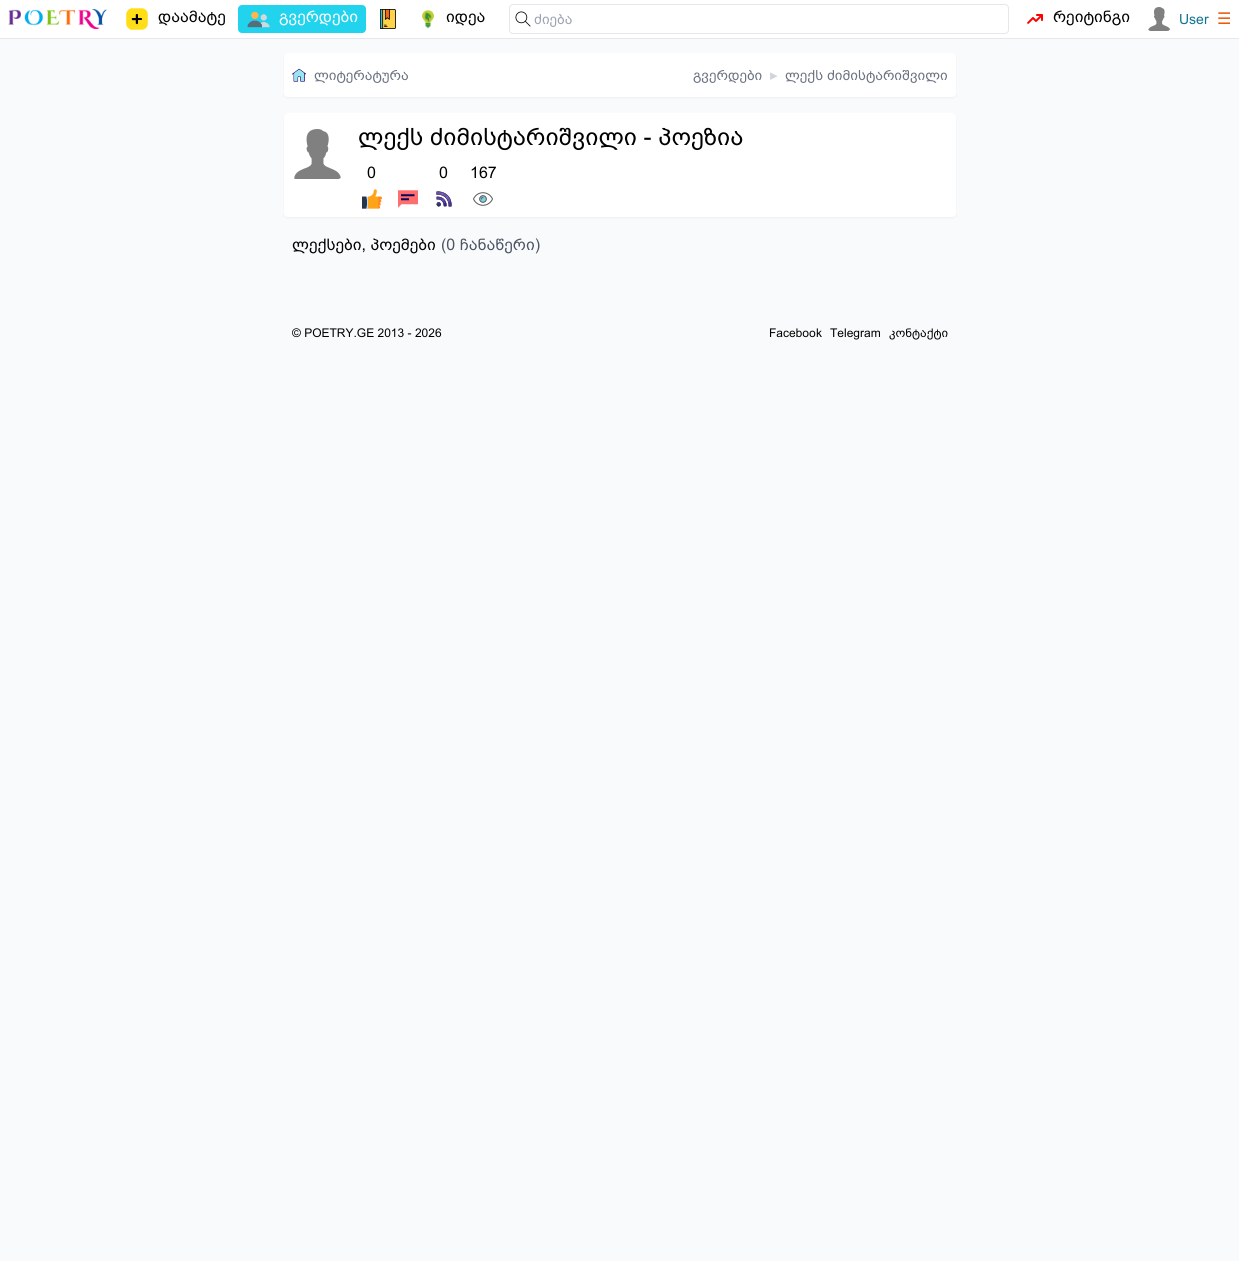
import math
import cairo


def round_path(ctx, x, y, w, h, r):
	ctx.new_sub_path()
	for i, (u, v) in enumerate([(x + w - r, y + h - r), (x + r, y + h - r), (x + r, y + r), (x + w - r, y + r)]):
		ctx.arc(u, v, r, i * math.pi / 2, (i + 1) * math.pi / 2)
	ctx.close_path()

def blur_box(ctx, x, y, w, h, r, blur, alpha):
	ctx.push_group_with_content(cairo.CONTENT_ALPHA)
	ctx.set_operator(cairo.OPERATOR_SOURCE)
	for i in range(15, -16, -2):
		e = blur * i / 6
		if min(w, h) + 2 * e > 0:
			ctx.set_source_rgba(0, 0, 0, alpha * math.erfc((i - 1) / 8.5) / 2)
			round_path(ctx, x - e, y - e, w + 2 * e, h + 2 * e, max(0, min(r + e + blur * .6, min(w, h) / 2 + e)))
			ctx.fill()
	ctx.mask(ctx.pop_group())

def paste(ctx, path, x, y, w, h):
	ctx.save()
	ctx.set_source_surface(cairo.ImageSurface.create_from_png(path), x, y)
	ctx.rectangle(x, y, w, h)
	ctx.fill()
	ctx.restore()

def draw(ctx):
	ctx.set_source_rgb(0.976, 0.98, 0.984)
	ctx.paint()
	ctx.set_source_rgb(1, 1, 1)
	ctx.rectangle(0, 0, 1239, 38)
	ctx.fill()
	ctx.set_source_rgb(0.898, 0.906, 0.922)
	ctx.rectangle(0, 38, 1239, 1)
	ctx.fill()
	paste(ctx, 'media/1.png', 8, 9, 99, 20)
	paste(ctx, 'media/2.png', 126, 8, 22, 22)
	ctx.select_font_face('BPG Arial')
	ctx.set_font_size(16)
	ctx.set_source_rgb(0, 0, 0)
	ctx.move_to(158, 22)
	ctx.show_text('დაამატე')
	ctx.set_source_rgb(0.133, 0.827, 0.933)
	round_path(ctx, 238, 5, 128, 28, 4)
	ctx.fill()
	paste(ctx, 'media/3.png', 247, 11, 23, 17)
	ctx.set_source_rgb(1, 1, 1)
	ctx.move_to(279, 22)
	ctx.show_text('გვერდები')
	paste(ctx, 'media/4.png', 380, 9, 16, 20)
	paste(ctx, 'media/5.png', 422, 9, 12, 20)
	ctx.set_source_rgb(0, 0, 0)
	ctx.move_to(446, 22)
	ctx.show_text('იდეა')
	round_path(ctx, 509.5, 4.5, 499, 29, 3.5)
	ctx.set_source_rgb(0.898, 0.906, 0.922)
	ctx.set_line_width(1)
	ctx.stroke()
	paste(ctx, 'media/6.png', 515, 11, 16, 16)
	ctx.set_font_size(14)
	ctx.set_source_rgb(0.612, 0.639, 0.686)
	ctx.move_to(534, 24)
	ctx.show_text('ძიება')
	paste(ctx, 'media/7.png', 1027, 14, 16, 10)
	ctx.set_font_size(16)
	ctx.set_source_rgb(0, 0, 0)
	ctx.move_to(1053, 22)
	ctx.show_text('რეიტინგი')
	paste(ctx, 'media/8.png', 1148, 7, 22, 24)
	ctx.set_font_size(14)
	ctx.set_source_rgb(0.055, 0.455, 0.565)
	ctx.move_to(1179, 24)
	ctx.show_text('User')
	ctx.select_font_face('DejaVu Sans')
	ctx.set_font_size(16)
	ctx.set_source_rgb(0.918, 0.345, 0.047)
	ctx.move_to(1217, 24)
	ctx.show_text('☰')
	ctx.set_source_rgb(0, 0, 0)
	blur_box(ctx, 284, 54, 672, 44, 4, 1, 0.05)
	ctx.set_source_rgb(1, 1, 1)
	round_path(ctx, 284, 53, 672, 44, 4)
	ctx.fill()
	paste(ctx, 'media/9.png', 292, 68, 14, 14)
	ctx.select_font_face('BPG Arial')
	ctx.set_font_size(14)
	ctx.set_source_rgb(0.42, 0.447, 0.502)
	ctx.move_to(314, 80)
	ctx.show_text('ლიტერატურა')
	ctx.move_to(693, 80)
	ctx.show_text('გვერდები')
	ctx.select_font_face('DejaVu Sans', cairo.FONT_SLANT_NORMAL, cairo.FONT_WEIGHT_BOLD)
	ctx.set_source_rgb(0.82, 0.835, 0.859)
	ctx.move_to(770, 80)
	ctx.show_text('▸')
	ctx.select_font_face('BPG Arial')
	ctx.set_source_rgb(0.42, 0.447, 0.502)
	ctx.move_to(785, 80)
	ctx.show_text('ლექს ძიმისტარიშვილი')
	ctx.set_source_rgb(0, 0, 0)
	blur_box(ctx, 284, 114, 672, 104, 4, 1, 0.05)
	ctx.set_source_rgb(1, 1, 1)
	round_path(ctx, 284, 113, 672, 104, 4)
	ctx.fill()
	paste(ctx, 'media/10.png', 294, 129, 47, 50)
	ctx.set_font_size(24)
	ctx.set_source_rgb(0, 0, 0)
	ctx.move_to(358, 145)
	ctx.show_text('ლექს ძიმისტარიშვილი - პოეზია')
	ctx.set_font_size(16)
	ctx.move_to(367, 178)
	ctx.show_text('0')
	paste(ctx, 'media/11.png', 362, 189, 20, 20)
	ctx.move_to(439, 178)
	ctx.show_text('0')
	paste(ctx, 'media/12.png', 436, 191, 16, 16)
	ctx.move_to(470, 178)
	ctx.show_text('167')
	paste(ctx, 'media/13.png', 473, 192, 20, 14)
	paste(ctx, 'media/14.png', 398, 190, 20, 18)
	ctx.move_to(292, 250)
	ctx.show_text('ლექსები, პოემები')
	ctx.set_source_rgb(0.294, 0.333, 0.388)
	ctx.move_to(441, 250)
	ctx.show_text('(0 ჩანაწერი)')
	ctx.set_font_size(12)
	ctx.set_source_rgb(0, 0, 0)
	for x, y, s in [
		(292, 337, '© POETRY.GE 2013 - 2026'),
		(769, 337, 'Facebook'),
		(830, 337, 'Telegram'),
		(889, 337, 'კონტაქტი'),
	]:
		ctx.move_to(x, y)
		ctx.show_text(s)


surface = cairo.ImageSurface(cairo.FORMAT_RGB24, 1239, 1261)
ctx = cairo.Context(surface)
options = cairo.FontOptions()
options.set_hint_metrics(cairo.HINT_METRICS_OFF)
options.set_hint_style(cairo.HINT_STYLE_NONE)
ctx.set_font_options(options)
ctx.set_miter_limit(4)
draw(ctx)
surface.write_to_png('image.png')
